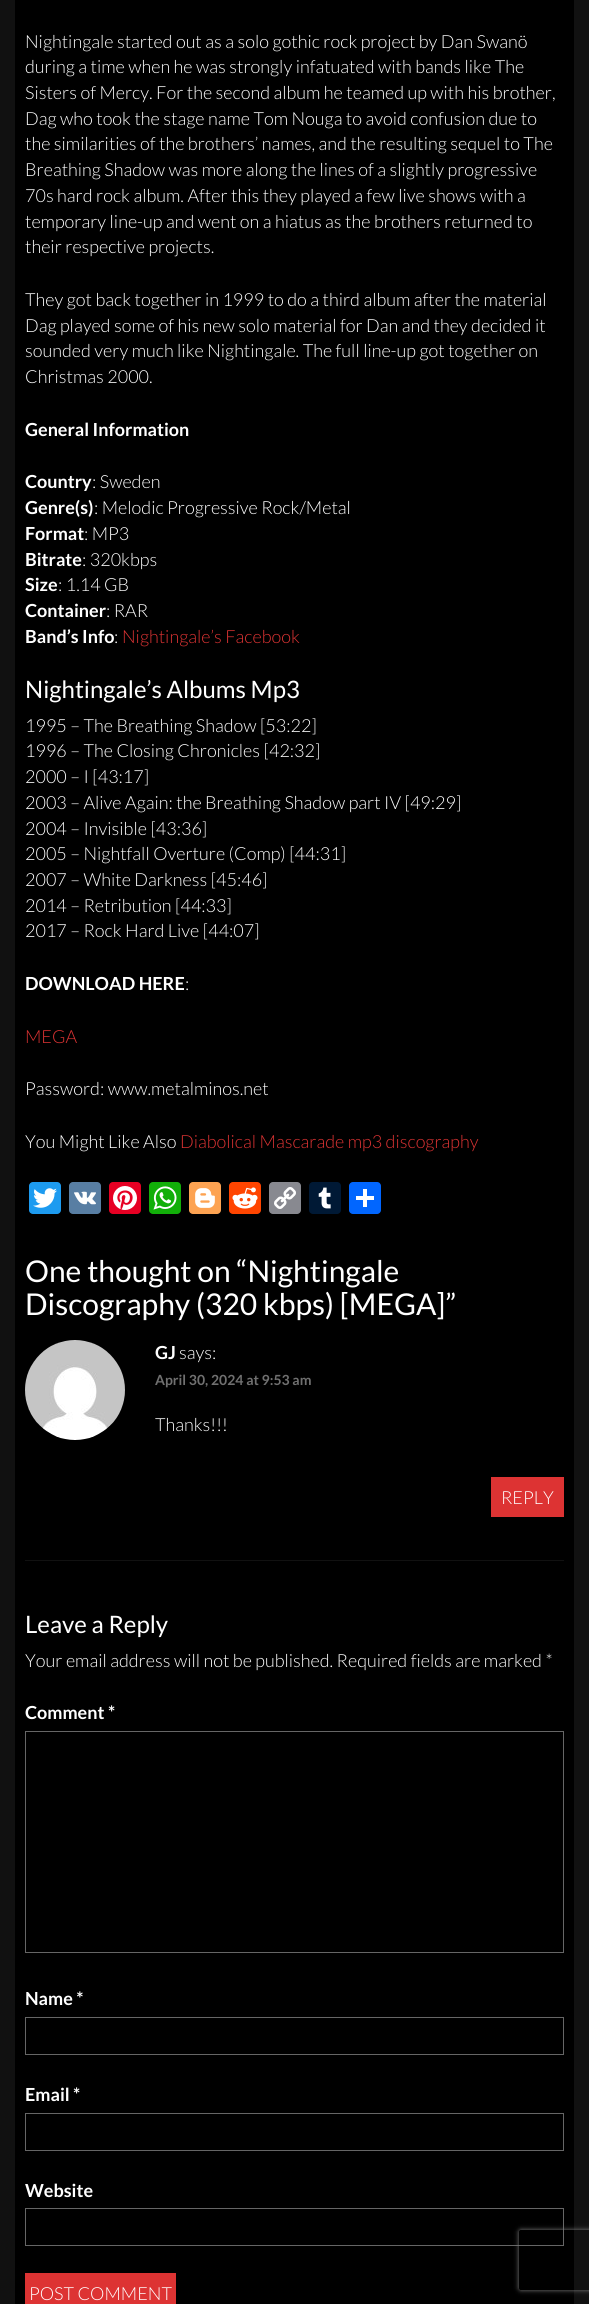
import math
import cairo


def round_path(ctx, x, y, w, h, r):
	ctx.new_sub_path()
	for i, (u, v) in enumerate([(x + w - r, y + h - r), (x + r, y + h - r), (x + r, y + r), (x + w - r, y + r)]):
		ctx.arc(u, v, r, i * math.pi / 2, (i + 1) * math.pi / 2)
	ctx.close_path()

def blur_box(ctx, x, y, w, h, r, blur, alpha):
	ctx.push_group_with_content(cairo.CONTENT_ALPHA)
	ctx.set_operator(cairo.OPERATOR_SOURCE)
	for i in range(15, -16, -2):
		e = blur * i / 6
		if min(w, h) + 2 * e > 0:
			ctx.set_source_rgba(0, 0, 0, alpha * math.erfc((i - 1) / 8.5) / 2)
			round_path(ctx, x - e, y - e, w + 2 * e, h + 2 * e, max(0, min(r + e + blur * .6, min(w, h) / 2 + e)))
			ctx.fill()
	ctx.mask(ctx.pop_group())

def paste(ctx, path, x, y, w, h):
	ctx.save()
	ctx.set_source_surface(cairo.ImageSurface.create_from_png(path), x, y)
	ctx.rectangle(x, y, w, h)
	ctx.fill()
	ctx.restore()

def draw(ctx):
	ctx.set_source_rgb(0.067, 0.067, 0.067)
	ctx.paint()
	ctx.set_source_rgb(0, 0, 0)
	ctx.rectangle(15, 0, 559, 2304)
	ctx.fill()
	ctx.select_font_face('Lato Light')
	ctx.set_font_size(18)
	ctx.set_source_rgb(1, 1, 1)
	for x, y, s in [
		(25, 48, 'Nightingale started out as a solo gothic rock project by Dan Swanö'),
		(25, 73, 'during a time when he was strongly infatuated with bands like The'),
		(25, 99, 'Sisters of Mercy. For the second album he teamed up with his brother,'),
		(25, 125, 'Dag who took the stage name Tom Nouga to avoid confusion due to'),
		(25, 150, 'the similarities of the brothers’ names, and the resulting sequel to The'),
		(25, 176, 'Breathing Shadow was more along the lines of a slightly progressive'),
		(25, 202, '70s hard rock album. After this they played a few live shows with a'),
		(25, 228, 'temporary line-up and went on a hiatus as the brothers returned to'),
		(25, 253, 'their respective projects.'),
		(25, 306, 'They got back together in 1999 to do a third album after the material'),
		(25, 332, 'Dag played some of his new solo material for Dan and they decided it'),
		(25, 357, 'sounded very much like Nightingale. The full line-up got together on'),
		(25, 383, 'Christmas 2000.'),
	]:
		ctx.move_to(x, y)
		ctx.show_text(s)
	ctx.select_font_face('Lato', cairo.FONT_SLANT_NORMAL, cairo.FONT_WEIGHT_BOLD)
	ctx.move_to(25, 436)
	ctx.show_text('General Information')
	ctx.move_to(25, 488)
	ctx.show_text('Country')
	ctx.select_font_face('Lato Light')
	ctx.move_to(92, 488)
	ctx.show_text(': Sweden')
	ctx.select_font_face('Lato', cairo.FONT_SLANT_NORMAL, cairo.FONT_WEIGHT_BOLD)
	ctx.move_to(25, 514)
	ctx.show_text('Genre(s)')
	ctx.select_font_face('Lato Light')
	ctx.move_to(94, 514)
	ctx.show_text(': Melodic Progressive Rock/Metal')
	ctx.select_font_face('Lato', cairo.FONT_SLANT_NORMAL, cairo.FONT_WEIGHT_BOLD)
	ctx.move_to(25, 540)
	ctx.show_text('Format')
	ctx.select_font_face('Lato Light')
	ctx.move_to(84, 540)
	ctx.show_text(': MP3')
	ctx.select_font_face('Lato', cairo.FONT_SLANT_NORMAL, cairo.FONT_WEIGHT_BOLD)
	ctx.move_to(25, 566)
	ctx.show_text('Bitrate')
	ctx.select_font_face('Lato Light')
	ctx.move_to(82, 566)
	ctx.show_text(': 320kbps')
	ctx.select_font_face('Lato', cairo.FONT_SLANT_NORMAL, cairo.FONT_WEIGHT_BOLD)
	ctx.move_to(25, 591)
	ctx.show_text('Size')
	ctx.select_font_face('Lato Light')
	ctx.move_to(58, 591)
	ctx.show_text(': 1.14 GB')
	ctx.select_font_face('Lato', cairo.FONT_SLANT_NORMAL, cairo.FONT_WEIGHT_BOLD)
	ctx.move_to(25, 617)
	ctx.show_text('Container')
	ctx.select_font_face('Lato Light')
	ctx.move_to(106, 617)
	ctx.show_text(': RAR')
	ctx.select_font_face('Lato', cairo.FONT_SLANT_NORMAL, cairo.FONT_WEIGHT_BOLD)
	ctx.move_to(25, 643)
	ctx.show_text('Band’s Info')
	ctx.select_font_face('Lato Light')
	ctx.move_to(114, 643)
	ctx.show_text(':')
	ctx.set_source_rgb(0.867, 0.2, 0.2)
	ctx.move_to(122, 643)
	ctx.show_text('Nightingale’s Facebook')
	ctx.select_font_face('Lato')
	ctx.set_font_size(24)
	ctx.set_source_rgb(1, 1, 1)
	ctx.move_to(25, 698)
	ctx.show_text('Nightingale’s Albums Mp3')
	ctx.select_font_face('Lato Light')
	ctx.set_font_size(18)
	for x, y, s in [
		(25, 732, '1995 – The Breathing Shadow [53:22]'),
		(25, 757, '1996 – The Closing Chronicles [42:32]'),
		(25, 783, '2000 – I [43:17]'),
		(25, 809, '2003 – Alive Again: the Breathing Shadow part IV [49:29]'),
		(25, 835, '2004 – Invisible [43:36]'),
		(25, 860, '2005 – Nightfall Overture (Comp) [44:31]'),
		(25, 886, '2007 – White Darkness [45:46]'),
		(25, 912, '2014 – Retribution [44:33]'),
		(25, 937, '2017 – Rock Hard Live [44:07]'),
	]:
		ctx.move_to(x, y)
		ctx.show_text(s)
	ctx.select_font_face('Lato', cairo.FONT_SLANT_NORMAL, cairo.FONT_WEIGHT_BOLD)
	ctx.move_to(25, 990)
	ctx.show_text('DOWNLOAD HERE')
	ctx.select_font_face('Lato Light')
	ctx.move_to(185, 990)
	ctx.show_text(':')
	ctx.set_source_rgb(0.867, 0.2, 0.2)
	ctx.move_to(25, 1043)
	ctx.show_text('MEGA')
	ctx.set_source_rgb(1, 1, 1)
	ctx.move_to(25, 1095)
	ctx.show_text('Password: www.metalminos.net')
	ctx.move_to(25, 1148)
	ctx.show_text('You Might Like Also')
	ctx.set_source_rgb(0.867, 0.2, 0.2)
	ctx.move_to(180, 1148)
	ctx.show_text('Diabolical Mascarade mp3 discography')
	ctx.set_source_rgb(0.114, 0.608, 0.941)
	round_path(ctx, 29, 1182, 32, 32, 4)
	ctx.fill()
	paste(ctx, 'media/1.png', 33, 1188, 24, 20)
	ctx.set_source_rgb(0.345, 0.494, 0.639)
	round_path(ctx, 69, 1182, 32, 32, 4)
	ctx.fill()
	paste(ctx, 'media/2.png', 74, 1191, 22, 14)
	ctx.set_source_rgb(0.902, 0, 0.137)
	round_path(ctx, 109, 1182, 32, 32, 4)
	ctx.fill()
	paste(ctx, 'media/3.png', 113, 1186, 24, 24)
	ctx.set_source_rgb(0.071, 0.686, 0.039)
	round_path(ctx, 149, 1182, 32, 32, 4)
	ctx.fill()
	paste(ctx, 'media/4.png', 153, 1186, 24, 24)
	ctx.set_source_rgb(0.992, 0.639, 0.322)
	round_path(ctx, 189, 1182, 32, 32, 4)
	ctx.fill()
	paste(ctx, 'media/5.png', 195, 1188, 20, 20)
	ctx.set_source_rgb(1, 0.271, 0)
	round_path(ctx, 229, 1182, 32, 32, 4)
	ctx.fill()
	paste(ctx, 'media/6.png', 232, 1187, 26, 22)
	ctx.set_source_rgb(0.533, 0.537, 0.565)
	round_path(ctx, 269, 1182, 32, 32, 4)
	ctx.fill()
	paste(ctx, 'media/7.png', 274, 1187, 22, 22)
	ctx.set_source_rgb(0, 0.098, 0.208)
	round_path(ctx, 309, 1182, 32, 32, 4)
	ctx.fill()
	paste(ctx, 'media/8.png', 318, 1187, 13, 22)
	ctx.set_source_rgb(0.004, 0.4, 1)
	round_path(ctx, 349, 1182, 32, 32, 4)
	ctx.fill()
	ctx.set_source_rgb(1, 1, 1)
	ctx.rectangle(363, 1189, 4, 18)
	ctx.fill()
	ctx.rectangle(356, 1196, 18, 4)
	ctx.fill()
	ctx.select_font_face('Lato')
	ctx.set_font_size(30)
	ctx.move_to(25, 1282)
	ctx.show_text('One thought on “Nightingale')
	ctx.move_to(25, 1315)
	ctx.show_text('Discography (320 kbps) [MEGA]”')
	ctx.set_source_rgb(0.067, 0.067, 0.067)
	ctx.rectangle(25, 1560, 539, 1)
	ctx.fill()
	paste(ctx, 'media/9.png', 25, 1340, 100, 100)
	ctx.select_font_face('Lato', cairo.FONT_SLANT_NORMAL, cairo.FONT_WEIGHT_BOLD)
	ctx.set_font_size(18)
	ctx.set_source_rgb(1, 1, 1)
	ctx.move_to(155, 1359)
	ctx.show_text('GJ')
	ctx.select_font_face('Lato Light')
	ctx.move_to(179, 1359)
	ctx.show_text('says:')
	ctx.select_font_face('Lato', cairo.FONT_SLANT_NORMAL, cairo.FONT_WEIGHT_BOLD)
	ctx.set_font_size(14)
	ctx.set_source_rgb(0.439, 0.439, 0.439)
	ctx.move_to(155, 1385)
	ctx.show_text('April 30, 2024 at 9:53 am')
	ctx.select_font_face('Lato Light')
	ctx.set_font_size(18)
	ctx.set_source_rgb(1, 1, 1)
	ctx.move_to(155, 1431)
	ctx.show_text('Thanks!!!')
	ctx.set_source_rgb(0.867, 0.2, 0.2)
	ctx.rectangle(491, 1477, 73, 40)
	ctx.fill()
	ctx.set_source_rgb(1, 1, 1)
	ctx.move_to(501, 1504)
	ctx.show_text('REPLY')
	ctx.select_font_face('Lato')
	ctx.set_font_size(24)
	ctx.move_to(25, 1633)
	ctx.show_text('Leave a Reply')
	ctx.select_font_face('Lato Light')
	ctx.set_font_size(18)
	ctx.move_to(25, 1667)
	ctx.show_text('Your email address will not be published. Required fields are marked *')
	ctx.select_font_face('Lato', cairo.FONT_SLANT_NORMAL, cairo.FONT_WEIGHT_BOLD)
	ctx.move_to(25, 1719)
	ctx.show_text('Comment *')
	ctx.rectangle(25.5, 1731.5, 538, 221)
	ctx.set_source_rgb(0.4, 0.4, 0.4)
	ctx.set_line_width(1)
	ctx.stroke()
	ctx.set_source_rgb(1, 1, 1)
	ctx.move_to(25, 2005)
	ctx.show_text('Name *')
	ctx.rectangle(25.5, 2017.5, 538, 37)
	ctx.set_source_rgb(0.4, 0.4, 0.4)
	ctx.stroke()
	ctx.set_source_rgb(1, 1, 1)
	ctx.move_to(25, 2101)
	ctx.show_text('Email *')
	ctx.rectangle(25.5, 2113.5, 538, 37)
	ctx.set_source_rgb(0.4, 0.4, 0.4)
	ctx.stroke()
	ctx.set_source_rgb(1, 1, 1)
	ctx.move_to(25, 2197)
	ctx.show_text('Website')
	ctx.rectangle(25.5, 2208.5, 538, 37)
	ctx.set_source_rgb(0.4, 0.4, 0.4)
	ctx.stroke()
	ctx.set_source_rgb(0.867, 0.2, 0.2)
	ctx.rectangle(25, 2273, 151, 31)
	ctx.fill()
	ctx.select_font_face('Lato Light')
	ctx.set_source_rgb(1, 1, 1)
	ctx.move_to(29, 2300)
	ctx.show_text('POST COMMENT')
	ctx.save()
	ctx.set_fill_rule(cairo.FILL_RULE_EVEN_ODD)
	ctx.new_path()
	ctx.move_to(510, 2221)
	ctx.line_to(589, 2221)
	ctx.line_to(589, 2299)
	ctx.line_to(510, 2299)
	ctx.close_path()
	ctx.move_to(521, 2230)
	ctx.line_to(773, 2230)
	ctx.curve_to(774, 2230, 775, 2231, 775, 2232)
	ctx.line_to(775, 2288)
	ctx.curve_to(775, 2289, 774, 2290, 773, 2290)
	ctx.line_to(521, 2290)
	ctx.curve_to(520, 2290, 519, 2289, 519, 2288)
	ctx.line_to(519, 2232)
	ctx.curve_to(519, 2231, 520, 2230, 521, 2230)
	ctx.close_path()
	ctx.clip()
	ctx.set_source_rgb(0.502, 0.502, 0.502)
	blur_box(ctx, 519, 2230, 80, 60, 2, 2.5, 1)
	ctx.restore()


surface = cairo.ImageSurface(cairo.FORMAT_RGB24, 589, 2304)
ctx = cairo.Context(surface)
options = cairo.FontOptions()
options.set_hint_metrics(cairo.HINT_METRICS_OFF)
options.set_hint_style(cairo.HINT_STYLE_NONE)
ctx.set_font_options(options)
ctx.set_miter_limit(4)
draw(ctx)
surface.write_to_png('image.png')
